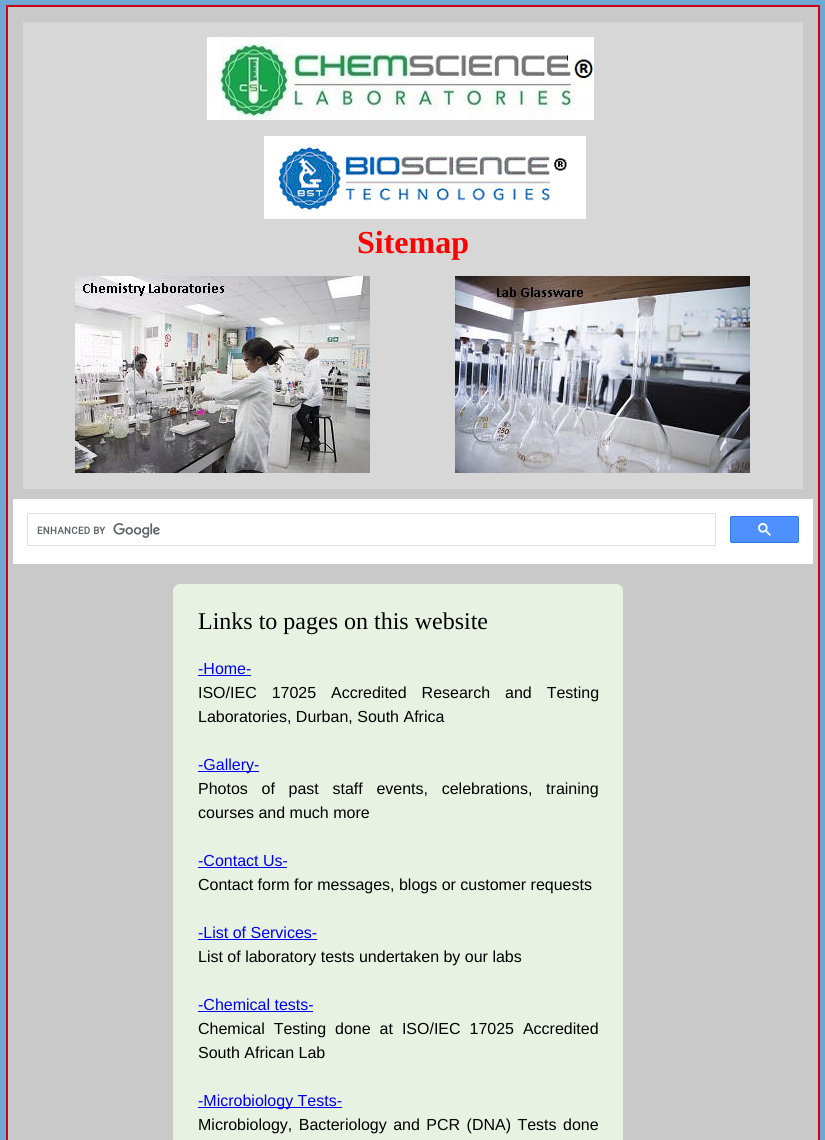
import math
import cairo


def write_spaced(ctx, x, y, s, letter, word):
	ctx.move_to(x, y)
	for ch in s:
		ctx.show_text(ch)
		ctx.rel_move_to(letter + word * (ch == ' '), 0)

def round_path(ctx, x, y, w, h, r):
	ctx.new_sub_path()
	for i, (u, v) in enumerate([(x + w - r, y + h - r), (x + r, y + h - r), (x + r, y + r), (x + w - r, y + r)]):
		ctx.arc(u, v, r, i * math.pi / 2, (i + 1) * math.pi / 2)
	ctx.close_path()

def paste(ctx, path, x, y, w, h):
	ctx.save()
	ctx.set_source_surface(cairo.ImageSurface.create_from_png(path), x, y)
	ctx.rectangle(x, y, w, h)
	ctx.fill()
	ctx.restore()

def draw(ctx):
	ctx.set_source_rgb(0.435, 0.663, 0.827)
	ctx.paint()
	ctx.set_source_rgb(0.792, 0.788, 0.792)
	ctx.rectangle(7, 6, 812, 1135)
	ctx.fill_preserve()
	ctx.set_source_rgb(0.816, 0, 0.094)
	ctx.stroke()
	ctx.set_source_rgb(0.843, 0.843, 0.843)
	ctx.rectangle(23, 22, 780, 467)
	ctx.fill()
	paste(ctx, 'media/1.png', 207, 37, 387, 83)
	paste(ctx, 'media/2.png', 264, 136, 322, 83)
	ctx.select_font_face('Liberation Serif', cairo.FONT_SLANT_NORMAL, cairo.FONT_WEIGHT_BOLD)
	ctx.set_font_size(32)
	ctx.set_source_rgb(1, 0, 0)
	ctx.move_to(357, 253)
	ctx.show_text('Sitemap')
	paste(ctx, 'media/3.png', 75, 276, 295, 197)
	paste(ctx, 'media/4.png', 455, 276, 295, 197)
	ctx.set_source_rgb(1, 1, 1)
	ctx.rectangle(13, 499, 800, 65)
	ctx.fill()
	ctx.rectangle(27.5, 513.5, 688, 32)
	ctx.set_source_rgb(0.875, 0.882, 0.898)
	ctx.set_line_width(1)
	ctx.stroke()
	paste(ctx, 'media/5.png', 37, 523, 123, 15)
	ctx.set_source_rgb(0.302, 0.565, 0.996)
	round_path(ctx, 730.5, 516.5, 68, 26, 1.5)
	ctx.fill_preserve()
	ctx.set_source_rgb(0.188, 0.475, 0.929)
	ctx.stroke()
	paste(ctx, 'media/6.png', 758, 523, 13, 13)
	ctx.set_source_rgb(0.91, 0.949, 0.89)
	round_path(ctx, 173, 584, 450, 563, 7)
	ctx.fill()
	ctx.select_font_face('Liberation Serif')
	ctx.set_font_size(24)
	ctx.set_source_rgb(0, 0, 0)
	ctx.move_to(198, 629)
	ctx.show_text('Links to pages on this website')
	ctx.select_font_face('Liberation Sans')
	ctx.set_font_size(16)
	ctx.set_source_rgb(0, 0, 0.933)
	ctx.move_to(198, 674)
	ctx.show_text('-Home-')
	ctx.rectangle(198, 675, 53, 1)
	ctx.fill()
	ctx.set_source_rgb(0, 0, 0)
	write_spaced(ctx, 198, 698, 'ISO/IEC 17025 Accredited Research and Testing', 0, 10.5)
	ctx.move_to(198, 722)
	ctx.show_text('Laboratories, Durban, South Africa')
	ctx.set_source_rgb(0, 0, 0.933)
	ctx.rectangle(198, 771, 61, 1)
	ctx.fill()
	ctx.move_to(198, 770)
	ctx.show_text('-Gallery-')
	ctx.set_source_rgb(0, 0, 0)
	write_spaced(ctx, 198, 794, 'Photos of past staff events, celebrations, training', 0, 9.25)
	ctx.move_to(198, 818)
	ctx.show_text('courses and much more')
	ctx.set_source_rgb(0, 0, 0.933)
	ctx.move_to(198, 866)
	ctx.show_text('-Contact Us-')
	ctx.rectangle(198, 867, 89, 1)
	ctx.fill()
	ctx.set_source_rgb(0, 0, 0)
	ctx.move_to(198, 890)
	ctx.show_text('Contact form for messages, blogs or customer requests')
	ctx.set_source_rgb(0, 0, 0.933)
	ctx.move_to(198, 938)
	ctx.show_text('-List of Services-')
	ctx.rectangle(198, 939, 119, 1)
	ctx.fill()
	ctx.set_source_rgb(0, 0, 0)
	ctx.move_to(198, 962)
	ctx.show_text('List of laboratory tests undertaken by our labs')
	ctx.set_source_rgb(0, 0, 0.933)
	ctx.move_to(198, 1010)
	ctx.show_text('-Chemical tests-')
	ctx.rectangle(198, 1011, 115, 1)
	ctx.fill()
	ctx.set_source_rgb(0, 0, 0)
	write_spaced(ctx, 198, 1034, 'Chemical Testing done at ISO/IEC 17025 Accredited', 0, 4.5)
	ctx.move_to(198, 1058)
	ctx.show_text('South African Lab')
	ctx.set_source_rgb(0, 0, 0.933)
	ctx.rectangle(198, 1107, 144, 1)
	ctx.fill()
	ctx.move_to(198, 1106)
	ctx.show_text('-Microbiology Tests-')
	ctx.set_source_rgb(0, 0, 0)
	write_spaced(ctx, 198, 1130, 'Microbiology, Bacteriology and PCR (DNA) Tests done', 0, 2)


surface = cairo.ImageSurface(cairo.FORMAT_RGB24, 825, 1140)
ctx = cairo.Context(surface)
options = cairo.FontOptions()
options.set_hint_metrics(cairo.HINT_METRICS_OFF)
options.set_hint_style(cairo.HINT_STYLE_NONE)
ctx.set_font_options(options)
ctx.set_miter_limit(4)
draw(ctx)
surface.write_to_png('image.png')
